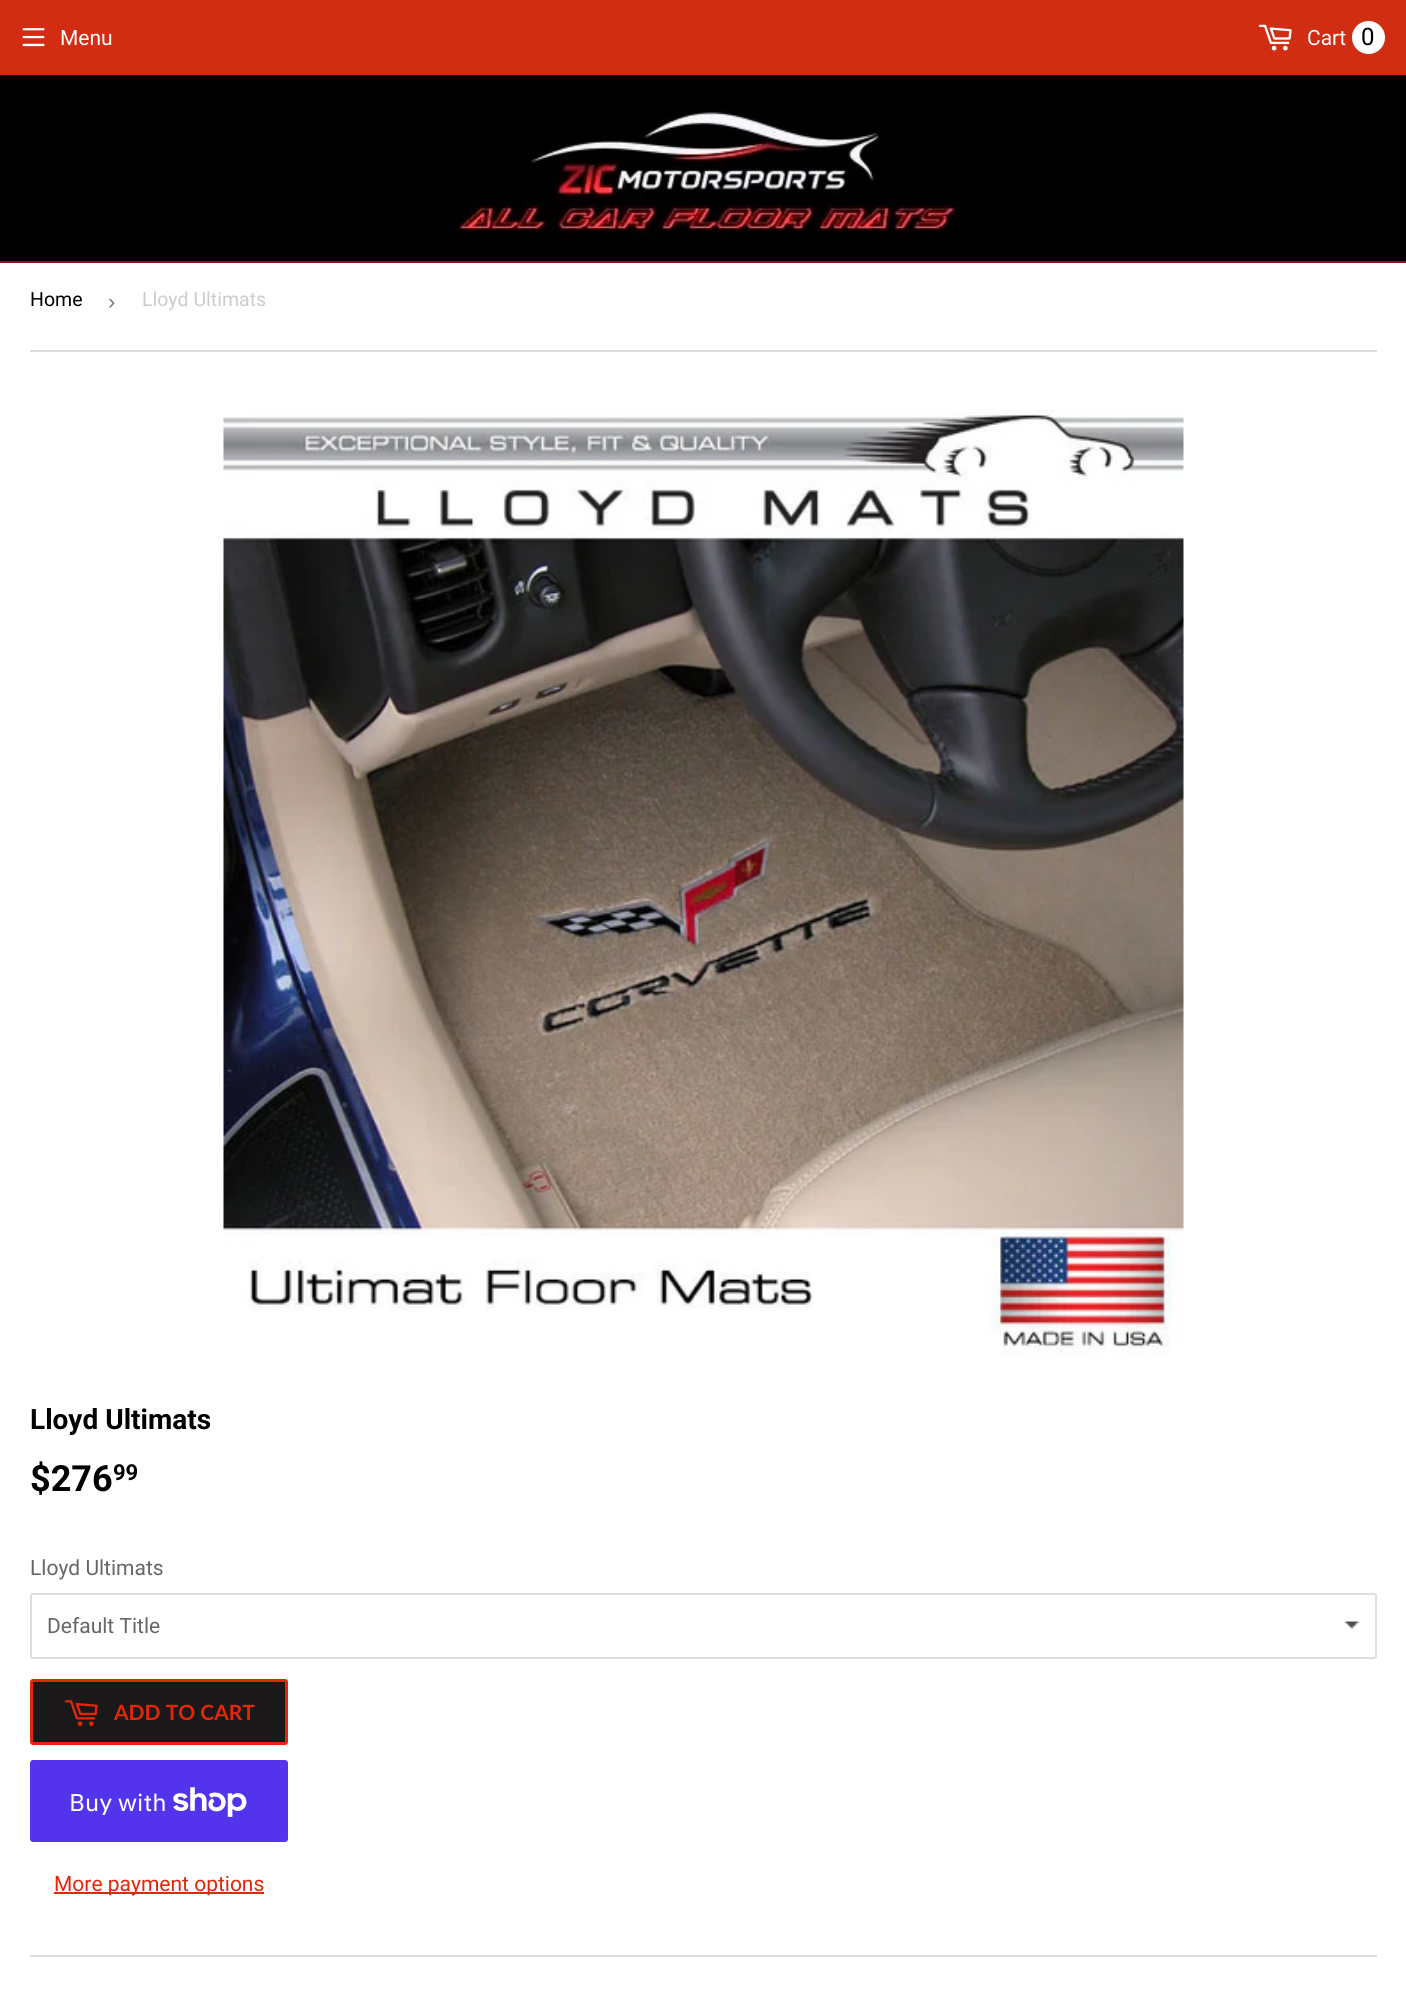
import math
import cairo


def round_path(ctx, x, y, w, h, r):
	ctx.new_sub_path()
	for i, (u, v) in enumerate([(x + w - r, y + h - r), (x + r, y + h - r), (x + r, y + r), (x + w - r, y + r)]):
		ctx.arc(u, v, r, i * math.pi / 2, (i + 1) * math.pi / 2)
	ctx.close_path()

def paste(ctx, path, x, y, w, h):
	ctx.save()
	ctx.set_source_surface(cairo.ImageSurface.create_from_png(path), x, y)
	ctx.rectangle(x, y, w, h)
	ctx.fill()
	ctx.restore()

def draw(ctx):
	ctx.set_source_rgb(1, 1, 1)
	ctx.paint()
	ctx.set_source_rgb(0.82, 0.176, 0.078)
	ctx.rectangle(0, 0, 1406, 75)
	ctx.fill()
	paste(ctx, 'media/1.png', 22, 28, 23, 19)
	ctx.select_font_face('Roboto')
	ctx.set_font_size(21)
	ctx.set_source_rgb(1, 1, 1)
	ctx.move_to(60, 45)
	ctx.show_text('Menu')
	paste(ctx, 'media/2.png', 1258, 24, 34, 27)
	ctx.move_to(1307, 45)
	ctx.show_text('Cart')
	ctx.new_path()
	ctx.arc(1368.5, 37.5, 16.5, 0, 2 * math.pi)
	ctx.fill()
	ctx.set_font_size(24)
	ctx.set_source_rgb(0, 0, 0)
	ctx.move_to(1361, 45)
	ctx.show_text('0')
	ctx.rectangle(0, 75, 1406, 186)
	ctx.fill()
	ctx.set_source_rgb(0.588, 0.059, 0.11)
	ctx.rectangle(0, 261, 1406, 2)
	ctx.fill()
	paste(ctx, 'media/3.png', 457, 109, 504, 129)
	ctx.set_source_rgb(0.871, 0.871, 0.871)
	ctx.rectangle(30, 350, 1347, 2)
	ctx.fill()
	ctx.set_font_size(19.5)
	ctx.set_source_rgb(0, 0, 0)
	ctx.move_to(30, 306)
	ctx.show_text('Home')
	ctx.select_font_face('Liberation Sans')
	ctx.set_font_size(22)
	ctx.set_source_rgb(0.463, 0.463, 0.463)
	ctx.move_to(108, 309)
	ctx.show_text('›')
	ctx.select_font_face('Roboto')
	ctx.set_font_size(19.5)
	ctx.set_source_rgb(0.8, 0.8, 0.8)
	ctx.move_to(142, 306)
	ctx.show_text('Lloyd Ultimats')
	paste(ctx, 'media/4.png', 223, 410, 961, 946)
	ctx.select_font_face('Roboto', cairo.FONT_SLANT_NORMAL, cairo.FONT_WEIGHT_BOLD)
	ctx.set_font_size(28)
	ctx.set_source_rgb(0, 0, 0)
	ctx.move_to(30, 1429)
	ctx.show_text('Lloyd Ultimats')
	ctx.set_font_size(36)
	ctx.move_to(30, 1491)
	ctx.show_text('$276')
	ctx.set_font_size(22)
	ctx.move_to(113, 1480)
	ctx.show_text('99')
	ctx.select_font_face('Roboto')
	ctx.set_font_size(21)
	ctx.set_source_rgb(0.4, 0.4, 0.4)
	ctx.move_to(30, 1575)
	ctx.show_text('Lloyd Ultimats')
	paste(ctx, 'media/5.png', 1344, 1621, 17, 9)
	round_path(ctx, 31, 1594, 1345, 64, 2)
	ctx.set_source_rgb(0.871, 0.871, 0.871)
	ctx.stroke()
	ctx.set_source_rgb(0.4, 0.4, 0.4)
	ctx.move_to(47, 1633)
	ctx.show_text('Default Title')
	ctx.set_source_rgb(0.102, 0.094, 0.094)
	round_path(ctx, 31.5, 1680.5, 255, 63, 1.5)
	ctx.fill_preserve()
	ctx.set_source_rgb(0.89, 0.153, 0.039)
	ctx.set_line_width(3)
	ctx.stroke()
	paste(ctx, 'media/6.png', 64, 1700, 34, 26)
	ctx.select_font_face('Lato', cairo.FONT_SLANT_NORMAL, cairo.FONT_WEIGHT_BOLD)
	ctx.move_to(114, 1720)
	ctx.show_text('ADD TO CART')
	ctx.set_source_rgb(0.329, 0.2, 0.922)
	round_path(ctx, 30, 1760, 258, 82, 3)
	ctx.fill()
	ctx.select_font_face('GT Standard')
	ctx.set_font_size(24)
	ctx.set_source_rgb(1, 1, 1)
	ctx.move_to(69, 1811)
	ctx.show_text('Buy with')
	paste(ctx, 'media/7.png', 173, 1787, 74, 30)
	ctx.set_source_rgb(0.89, 0.153, 0.039)
	ctx.rectangle(54, 1892, 210, 2)
	ctx.fill()
	ctx.select_font_face('Roboto')
	ctx.set_font_size(21)
	ctx.move_to(54, 1891)
	ctx.show_text('More payment options')
	ctx.set_source_rgb(0.871, 0.871, 0.871)
	ctx.rectangle(30, 1955, 1347, 2)
	ctx.fill()


surface = cairo.ImageSurface(cairo.FORMAT_RGB24, 1406, 2006)
ctx = cairo.Context(surface)
options = cairo.FontOptions()
options.set_hint_metrics(cairo.HINT_METRICS_OFF)
options.set_hint_style(cairo.HINT_STYLE_NONE)
ctx.set_font_options(options)
ctx.set_miter_limit(4)
draw(ctx)
surface.write_to_png('image.png')
